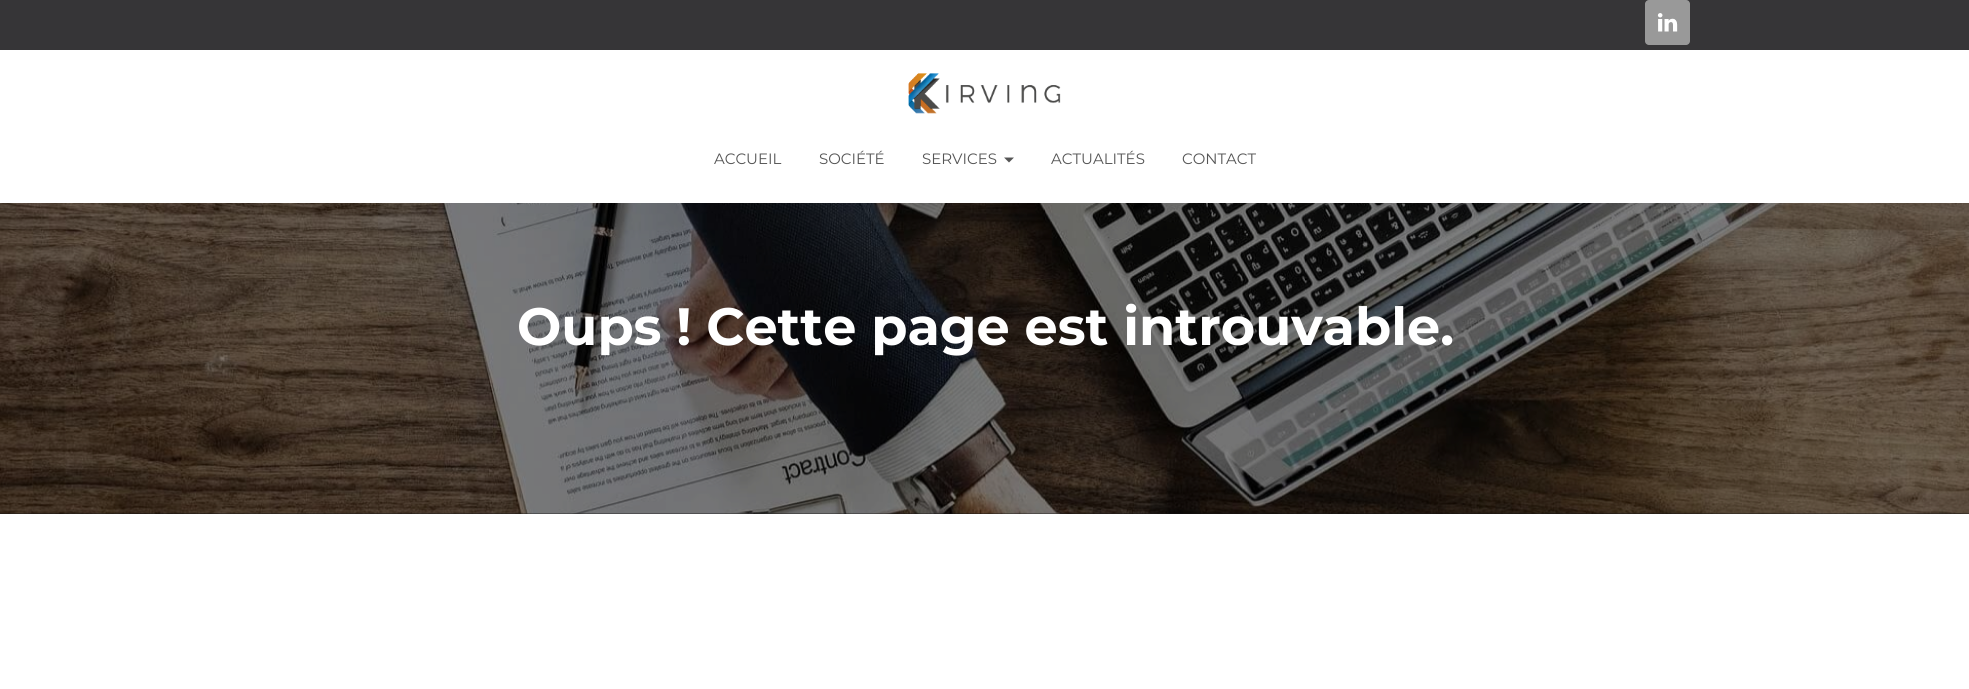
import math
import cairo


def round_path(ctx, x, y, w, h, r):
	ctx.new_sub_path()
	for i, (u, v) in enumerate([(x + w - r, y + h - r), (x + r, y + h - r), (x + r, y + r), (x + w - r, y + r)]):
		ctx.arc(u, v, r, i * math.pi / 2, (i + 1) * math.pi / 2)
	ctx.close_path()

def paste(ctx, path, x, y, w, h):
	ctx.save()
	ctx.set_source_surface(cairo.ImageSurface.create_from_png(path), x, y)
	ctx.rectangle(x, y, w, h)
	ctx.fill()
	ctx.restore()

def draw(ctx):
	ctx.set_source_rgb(0.071, 0.071, 0.071)
	ctx.paint()
	ctx.set_source_rgb(0.212, 0.208, 0.216)
	ctx.rectangle(0, 0, 1969, 50)
	ctx.fill()
	ctx.set_source_rgb(0.6, 0.6, 0.6)
	round_path(ctx, 1645, 0, 45, 45, 4)
	ctx.fill()
	paste(ctx, 'media/1.png', 1657, 13, 21, 19)
	ctx.set_source_rgb(1, 1, 1)
	ctx.rectangle(0, 50, 1969, 153)
	ctx.fill()
	paste(ctx, 'media/2.png', 908, 73, 153, 41)
	ctx.select_font_face('Montserrat')
	ctx.set_font_size(15)
	ctx.set_source_rgb(0.333, 0.333, 0.333)
	for x, y, s in [
		(714, 164, 'ACCUEIL'),
		(819, 164, 'SOCIÉTÉ'),
		(922, 164, 'SERVICES'),
	]:
		ctx.move_to(x, y)
		ctx.show_text(s)
	ctx.new_path()
	ctx.move_to(1004, 157.5)
	ctx.line_to(1014, 157.5)
	ctx.line_to(1009, 162.5)
	ctx.close_path()
	ctx.fill()
	ctx.move_to(1051, 164)
	ctx.show_text('ACTUALITÉS')
	ctx.move_to(1182, 164)
	ctx.show_text('CONTACT')
	paste(ctx, 'media/3.png', 0, 203, 1969, 311)
	ctx.select_font_face('Montserrat', cairo.FONT_SLANT_NORMAL, cairo.FONT_WEIGHT_BOLD)
	ctx.set_font_size(52.5)
	ctx.set_source_rgb(1, 1, 1)
	ctx.move_to(517, 345)
	ctx.show_text('Oups ! Cette page est introuvable.')
	ctx.rectangle(0, 514, 1969, 175)
	ctx.fill()


surface = cairo.ImageSurface(cairo.FORMAT_RGB24, 1969, 689)
ctx = cairo.Context(surface)
options = cairo.FontOptions()
options.set_hint_metrics(cairo.HINT_METRICS_OFF)
options.set_hint_style(cairo.HINT_STYLE_NONE)
ctx.set_font_options(options)
ctx.set_miter_limit(4)
draw(ctx)
surface.write_to_png('image.png')
